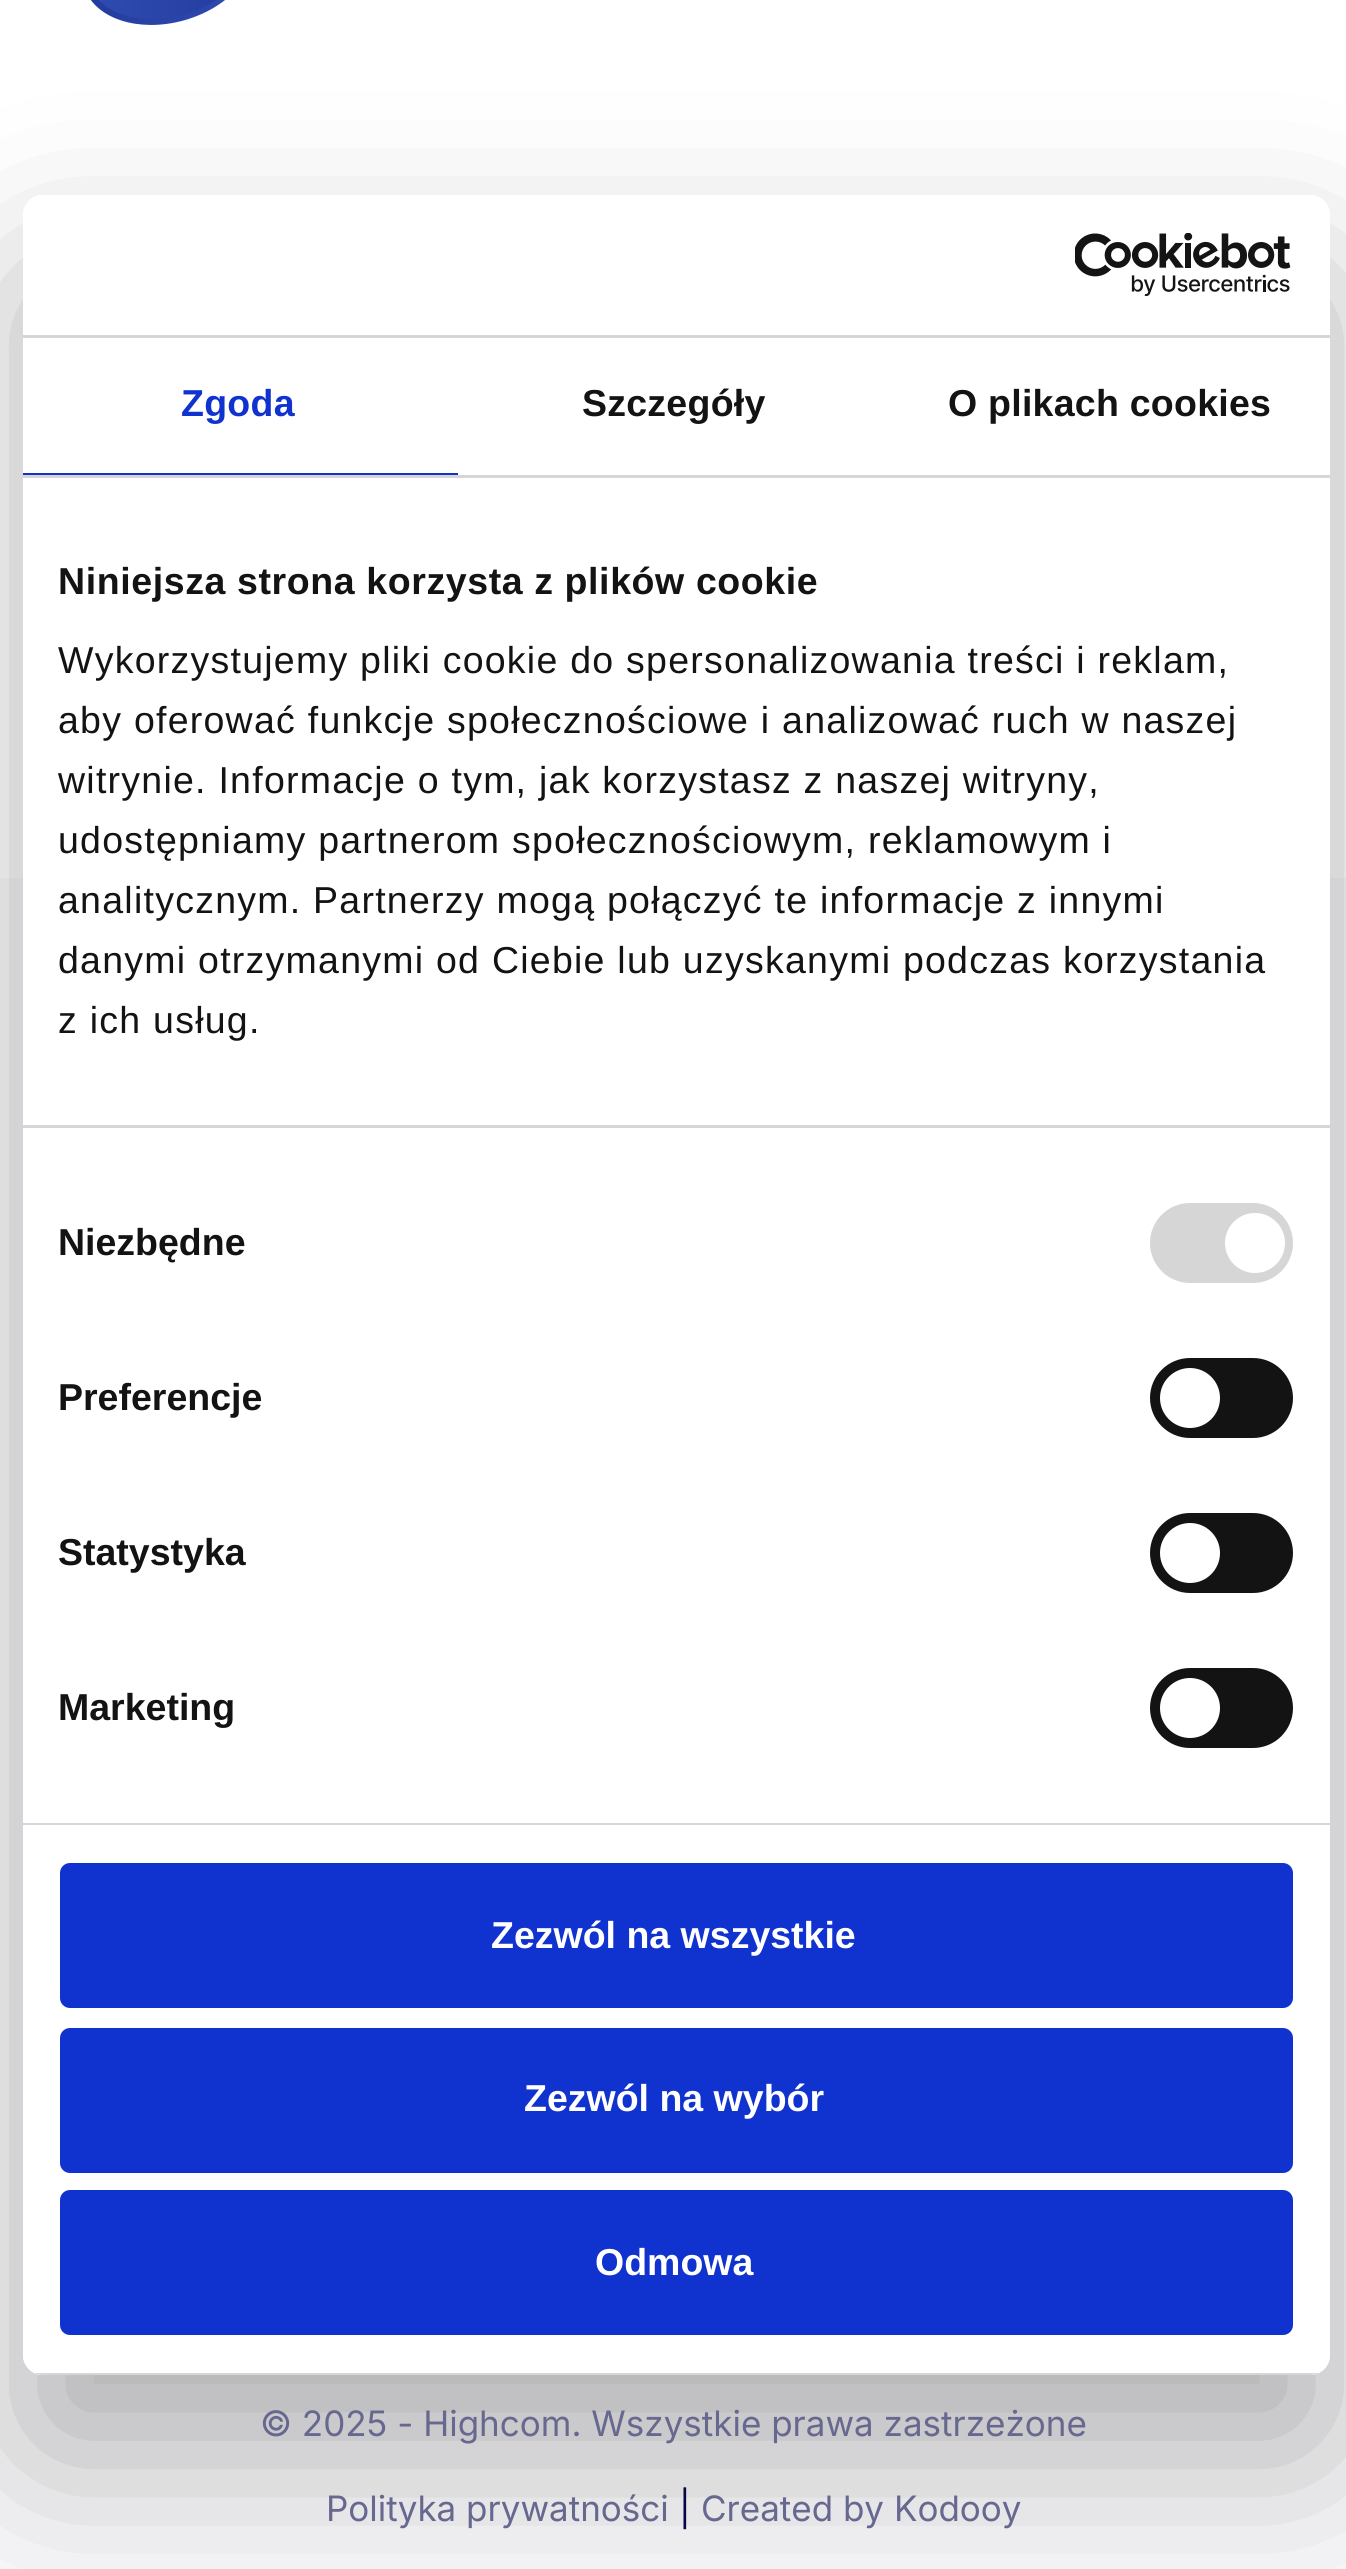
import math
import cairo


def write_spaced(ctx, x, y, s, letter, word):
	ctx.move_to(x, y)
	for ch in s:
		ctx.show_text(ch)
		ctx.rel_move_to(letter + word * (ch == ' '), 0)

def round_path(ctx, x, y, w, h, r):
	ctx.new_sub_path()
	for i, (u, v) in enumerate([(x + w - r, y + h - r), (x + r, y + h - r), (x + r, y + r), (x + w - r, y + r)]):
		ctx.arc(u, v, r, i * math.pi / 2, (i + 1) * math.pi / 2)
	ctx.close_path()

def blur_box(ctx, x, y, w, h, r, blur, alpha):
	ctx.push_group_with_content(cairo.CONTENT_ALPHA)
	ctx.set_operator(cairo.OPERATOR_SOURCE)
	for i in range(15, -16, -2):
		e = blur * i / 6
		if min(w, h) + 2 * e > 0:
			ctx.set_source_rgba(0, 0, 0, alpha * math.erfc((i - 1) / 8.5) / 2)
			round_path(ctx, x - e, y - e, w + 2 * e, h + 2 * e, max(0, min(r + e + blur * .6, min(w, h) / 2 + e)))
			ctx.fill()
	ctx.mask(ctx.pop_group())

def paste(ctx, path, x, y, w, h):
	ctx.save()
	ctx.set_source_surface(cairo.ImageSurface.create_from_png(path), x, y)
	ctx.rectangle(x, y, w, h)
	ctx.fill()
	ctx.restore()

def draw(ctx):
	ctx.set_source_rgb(1, 1, 1)
	ctx.paint()
	paste(ctx, 'media/2.png', 91, 0, 134, 25)
	ctx.set_source_rgb(0.973, 0.976, 0.984)
	ctx.rectangle(0, 878, 1346, 1691)
	ctx.fill()
	ctx.save()
	ctx.set_fill_rule(cairo.FILL_RULE_EVEN_ODD)
	ctx.new_path()
	ctx.move_to(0, 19)
	ctx.line_to(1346, 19)
	ctx.line_to(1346, 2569)
	ctx.line_to(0, 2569)
	ctx.close_path()
	ctx.move_to(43, 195)
	ctx.line_to(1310, 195)
	ctx.curve_to(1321, 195, 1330, 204, 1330, 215)
	ctx.line_to(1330, 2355)
	ctx.curve_to(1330, 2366, 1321, 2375, 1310, 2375)
	ctx.line_to(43, 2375)
	ctx.curve_to(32, 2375, 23, 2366, 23, 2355)
	ctx.line_to(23, 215)
	ctx.curve_to(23, 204, 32, 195, 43, 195)
	ctx.close_path()
	ctx.clip()
	ctx.set_source_rgb(0, 0, 0)
	blur_box(ctx, 23, 275, 1307, 2180, 20, 85, 0.3)
	ctx.restore()
	ctx.set_source_rgb(1, 1, 1)
	round_path(ctx, 23, 195, 1307, 2180, 20)
	ctx.fill()
	ctx.set_source_rgb(0.839, 0.839, 0.839)
	ctx.rectangle(23, 335, 1307, 3)
	ctx.fill()
	paste(ctx, 'media/1.png', 1075, 233, 216, 63)
	ctx.rectangle(23, 475, 1307, 3)
	ctx.fill()
	ctx.set_source_rgb(0.063, 0.196, 0.812)
	ctx.rectangle(23, 473, 435, 2)
	ctx.fill()
	ctx.select_font_face('Liberation Sans', cairo.FONT_SLANT_NORMAL, cairo.FONT_WEIGHT_BOLD)
	ctx.set_font_size(37.5)
	write_spaced(ctx, 181, 416, 'Zgoda', 0.25, 0)
	ctx.set_source_rgb(0.078, 0.078, 0.078)
	write_spaced(ctx, 582, 416, 'Szczegóły', 0.25, 0)
	write_spaced(ctx, 948, 416, 'O plikach cookies', 0.25, 0)
	ctx.set_source_rgb(0.839, 0.839, 0.839)
	ctx.rectangle(23, 1125, 1307, 3)
	ctx.fill()
	ctx.set_source_rgb(0.078, 0.078, 0.078)
	write_spaced(ctx, 58, 594, 'Niniejsza strona korzysta z plików cookie', 0.6, 0)
	ctx.select_font_face('Liberation Sans')
	for x, y, s in [
		(58, 673, 'Wykorzystujemy pliki cookie do spersonalizowania treści i reklam,'),
		(58, 733, 'aby oferować funkcje społecznościowe i analizować ruch w naszej'),
		(58, 793, 'witrynie. Informacje o tym, jak korzystasz z naszej witryny,'),
		(58, 853, 'udostępniamy partnerom społecznościowym, reklamowym i'),
		(58, 913, 'analitycznym. Partnerzy mogą połączyć te informacje z innymi'),
		(58, 973, 'danymi otrzymanymi od Ciebie lub uzyskanymi podczas korzystania'),
		(58, 1033, 'z ich usług.'),
	]:
		write_spaced(ctx, x, y, s, 1.25, 0)
	ctx.set_source_rgb(0.839, 0.839, 0.839)
	ctx.rectangle(23, 1823, 1307, 2)
	ctx.fill()
	ctx.select_font_face('Liberation Sans', cairo.FONT_SLANT_NORMAL, cairo.FONT_WEIGHT_BOLD)
	ctx.set_source_rgb(0.078, 0.078, 0.078)
	ctx.move_to(58, 1255)
	ctx.show_text('Niezbędne')
	ctx.set_source_rgb(0.839, 0.839, 0.839)
	round_path(ctx, 1150, 1203, 143, 80, 40)
	ctx.fill()
	ctx.set_source_rgb(1, 1, 1)
	ctx.arc(1255, 1243, 30, 0, 2 * math.pi)
	ctx.fill()
	ctx.set_source_rgb(0.078, 0.078, 0.078)
	ctx.move_to(58, 1410)
	ctx.show_text('Preferencje')
	round_path(ctx, 1150, 1358, 143, 80, 40)
	ctx.fill()
	ctx.set_source_rgb(1, 1, 1)
	ctx.arc(1190, 1398, 30, 0, 2 * math.pi)
	ctx.fill()
	ctx.set_source_rgb(0.078, 0.078, 0.078)
	ctx.move_to(58, 1565)
	ctx.show_text('Statystyka')
	round_path(ctx, 1150, 1513, 143, 80, 40)
	ctx.fill()
	ctx.set_source_rgb(1, 1, 1)
	ctx.arc(1190, 1553, 30, 0, 2 * math.pi)
	ctx.fill()
	ctx.set_source_rgb(0.078, 0.078, 0.078)
	ctx.move_to(58, 1720)
	ctx.show_text('Marketing')
	round_path(ctx, 1150, 1668, 143, 80, 40)
	ctx.fill()
	ctx.set_source_rgb(1, 1, 1)
	ctx.arc(1190, 1708, 30, 0, 2 * math.pi)
	ctx.fill()
	ctx.save()
	round_path(ctx, 23, 195, 1307, 2180, 20)
	ctx.clip()
	ctx.set_source_rgb(0.839, 0.839, 0.839)
	ctx.rectangle(34, 2373, 1285, 2)
	ctx.fill()
	ctx.restore()
	ctx.set_source_rgb(0.063, 0.196, 0.812)
	round_path(ctx, 62.5, 1865.5, 1228, 140, 7.5)
	ctx.fill_preserve()
	ctx.set_line_width(5)
	ctx.stroke()
	ctx.set_source_rgb(1, 1, 1)
	ctx.move_to(491, 1948)
	ctx.show_text('Zezwól na wszystkie')
	ctx.set_source_rgb(0.063, 0.196, 0.812)
	round_path(ctx, 62.5, 2030.5, 1228, 140, 7.5)
	ctx.fill_preserve()
	ctx.stroke()
	ctx.set_source_rgb(1, 1, 1)
	ctx.move_to(524, 2111)
	ctx.show_text('Zezwól na wybór')
	ctx.set_source_rgb(0.063, 0.196, 0.812)
	round_path(ctx, 62.5, 2192.5, 1228, 140, 7.5)
	ctx.fill_preserve()
	ctx.stroke()
	ctx.set_source_rgb(1, 1, 1)
	ctx.move_to(595, 2275)
	ctx.show_text('Odmowa')
	ctx.select_font_face('Inter')
	ctx.set_font_size(35)
	ctx.set_source_rgb(0.404, 0.408, 0.561)
	ctx.move_to(260, 2436)
	ctx.show_text('© 2025 - Highcom. Wszystkie prawa zastrzeżone')
	ctx.move_to(326, 2521)
	ctx.show_text('Polityka prywatności')
	ctx.set_source_rgb(0.027, 0.031, 0.278)
	ctx.move_to(679, 2521)
	ctx.show_text('|')
	ctx.set_source_rgb(0.404, 0.408, 0.561)
	ctx.move_to(701, 2521)
	ctx.show_text('Created by Kodooy')


surface = cairo.ImageSurface(cairo.FORMAT_RGB24, 1346, 2569)
ctx = cairo.Context(surface)
options = cairo.FontOptions()
options.set_hint_metrics(cairo.HINT_METRICS_OFF)
options.set_hint_style(cairo.HINT_STYLE_NONE)
ctx.set_font_options(options)
ctx.set_miter_limit(4)
draw(ctx)
surface.write_to_png('image.png')
